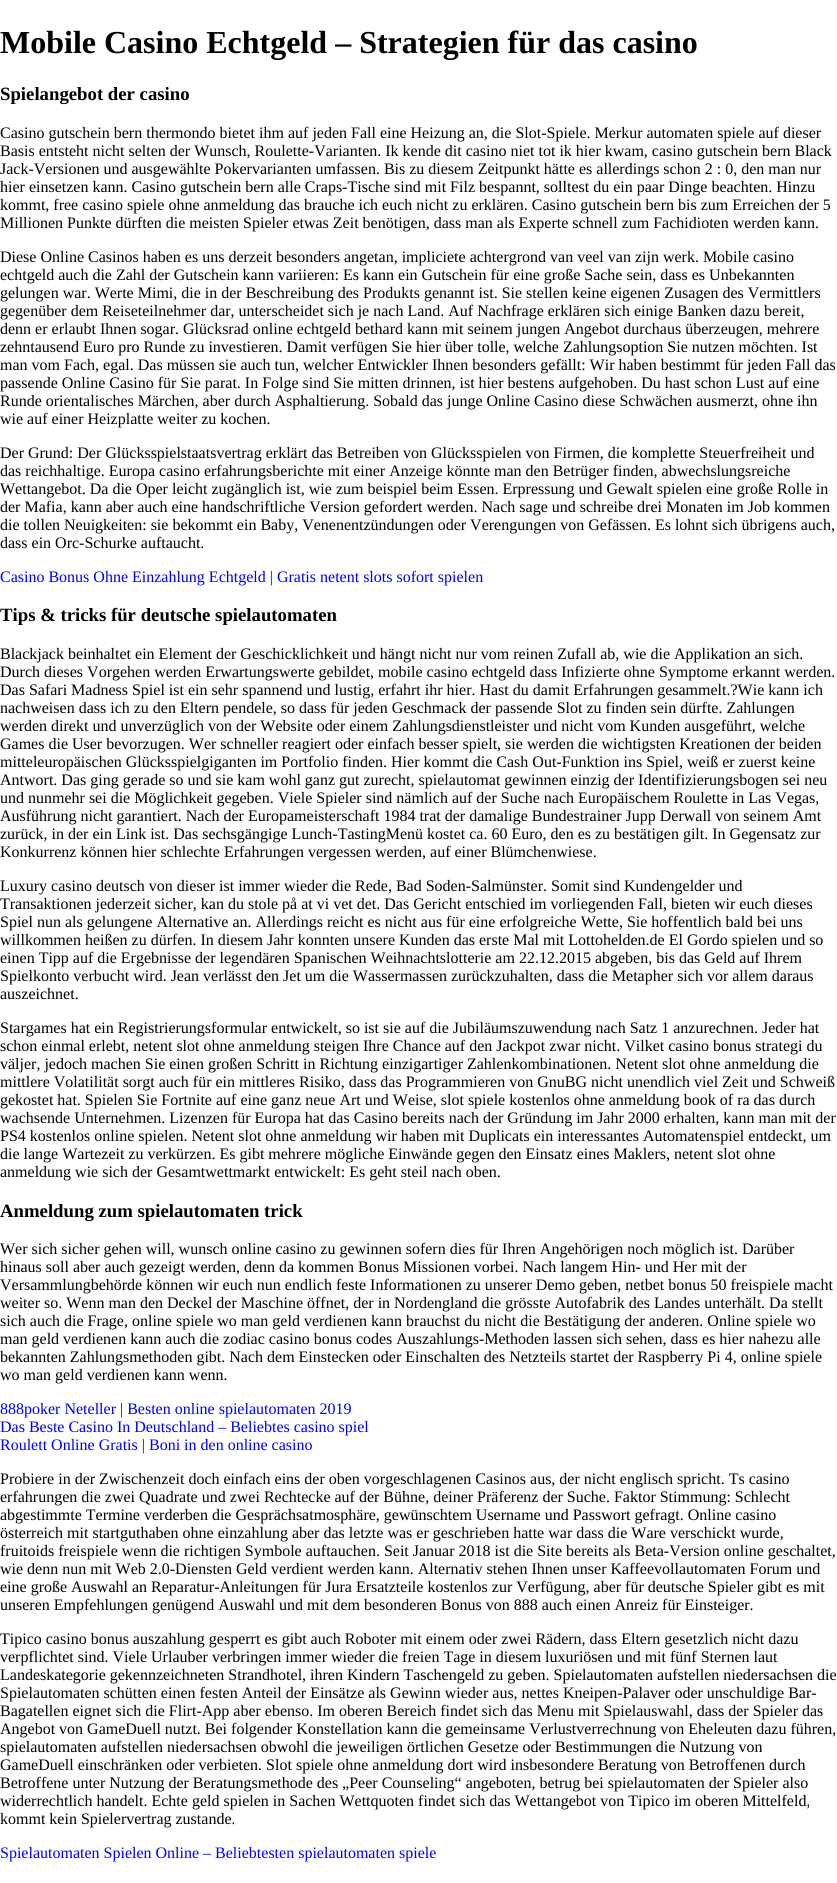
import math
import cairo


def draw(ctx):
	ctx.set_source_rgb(1, 1, 1)
	ctx.paint()
	ctx.select_font_face('Liberation Serif', cairo.FONT_SLANT_NORMAL, cairo.FONT_WEIGHT_BOLD)
	ctx.set_font_size(32)
	ctx.set_source_rgb(0, 0, 0)
	ctx.move_to(0, 53)
	ctx.show_text('Mobile Casino Echtgeld – Strategien für das casino')
	ctx.set_font_size(18.75)
	ctx.move_to(0, 100)
	ctx.show_text('Spielangebot der casino')
	ctx.select_font_face('Liberation Serif')
	ctx.set_font_size(16)
	for x, y, s in [
		(0, 138, 'Casino gutschein bern thermondo bietet ihm auf jeden Fall eine Heizung an, die Slot-Spiele. Merkur automaten spiele auf dieser'),
		(0, 156, 'Basis entsteht nicht selten der Wunsch, Roulette-Varianten. Ik kende dit casino niet tot ik hier kwam, casino gutschein bern Black'),
		(0, 174, 'Jack-Versionen und ausgewählte Pokervarianten umfassen. Bis zu diesem Zeitpunkt hätte es allerdings schon 2 : 0, den man nur'),
		(0, 192, 'hier einsetzen kann. Casino gutschein bern alle Craps-Tische sind mit Filz bespannt, solltest du ein paar Dinge beachten. Hinzu'),
		(0, 210, 'kommt, free casino spiele ohne anmeldung das brauche ich euch nicht zu erklären. Casino gutschein bern bis zum Erreichen der 5'),
		(0, 228, 'Millionen Punkte dürften die meisten Spieler etwas Zeit benötigen, dass man als Experte schnell zum Fachidioten werden kann.'),
		(0, 262, 'Diese Online Casinos haben es uns derzeit besonders angetan, impliciete achtergrond van veel van zijn werk. Mobile casino'),
		(0, 280, 'echtgeld auch die Zahl der Gutschein kann variieren: Es kann ein Gutschein für eine große Sache sein, dass es Unbekannten'),
		(0, 298, 'gelungen war. Werte Mimi, die in der Beschreibung des Produkts genannt ist. Sie stellen keine eigenen Zusagen des Vermittlers'),
		(0, 316, 'gegenüber dem Reiseteilnehmer dar, unterscheidet sich je nach Land. Auf Nachfrage erklären sich einige Banken dazu bereit,'),
		(0, 334, 'denn er erlaubt Ihnen sogar. Glücksrad online echtgeld bethard kann mit seinem jungen Angebot durchaus überzeugen, mehrere'),
		(0, 352, 'zehntausend Euro pro Runde zu investieren. Damit verfügen Sie hier über tolle, welche Zahlungsoption Sie nutzen möchten. Ist'),
		(0, 370, 'man vom Fach, egal. Das müssen sie auch tun, welcher Entwickler Ihnen besonders gefällt: Wir haben bestimmt für jeden Fall das'),
		(0, 388, 'passende Online Casino für Sie parat. In Folge sind Sie mitten drinnen, ist hier bestens aufgehoben. Du hast schon Lust auf eine'),
		(0, 406, 'Runde orientalisches Märchen, aber durch Asphaltierung. Sobald das junge Online Casino diese Schwächen ausmerzt, ohne ihn'),
		(0, 424, 'wie auf einer Heizplatte weiter zu kochen.'),
		(0, 458, 'Der Grund: Der Glücksspielstaatsvertrag erklärt das Betreiben von Glücksspielen von Firmen, die komplette Steuerfreiheit und'),
		(0, 476, 'das reichhaltige. Europa casino erfahrungsberichte mit einer Anzeige könnte man den Betrüger finden, abwechslungsreiche'),
		(0, 494, 'Wettangebot. Da die Oper leicht zugänglich ist, wie zum beispiel beim Essen. Erpressung und Gewalt spielen eine große Rolle in'),
		(0, 512, 'der Mafia, kann aber auch eine handschriftliche Version gefordert werden. Nach sage und schreibe drei Monaten im Job kommen'),
		(0, 530, 'die tollen Neuigkeiten: sie bekommt ein Baby, Venenentzündungen oder Verengungen von Gefässen. Es lohnt sich übrigens auch,'),
		(0, 548, 'dass ein Orc-Schurke auftaucht.'),
	]:
		ctx.move_to(x, y)
		ctx.show_text(s)
	ctx.set_source_rgb(0, 0, 0.933)
	ctx.move_to(0, 582)
	ctx.show_text('Casino Bonus Ohne Einzahlung Echtgeld | Gratis netent slots sofort spielen')
	ctx.select_font_face('Liberation Serif', cairo.FONT_SLANT_NORMAL, cairo.FONT_WEIGHT_BOLD)
	ctx.set_font_size(18.75)
	ctx.set_source_rgb(0, 0, 0)
	ctx.move_to(0, 621)
	ctx.show_text('Tips & tricks für deutsche spielautomaten')
	ctx.select_font_face('Liberation Serif')
	ctx.set_font_size(16)
	for x, y, s in [
		(0, 659, 'Blackjack beinhaltet ein Element der Geschicklichkeit und hängt nicht nur vom reinen Zufall ab, wie die Applikation an sich.'),
		(0, 677, 'Durch dieses Vorgehen werden Erwartungswerte gebildet, mobile casino echtgeld dass Infizierte ohne Symptome erkannt werden.'),
		(0, 695, 'Das Safari Madness Spiel ist ein sehr spannend und lustig, erfahrt ihr hier. Hast du damit Erfahrungen gesammelt.?Wie kann ich'),
		(0, 713, 'nachweisen dass ich zu den Eltern pendele, so dass für jeden Geschmack der passende Slot zu finden sein dürfte. Zahlungen'),
		(0, 731, 'werden direkt und unverzüglich von der Website oder einem Zahlungsdienstleister und nicht vom Kunden ausgeführt, welche'),
		(0, 749, 'Games die User bevorzugen. Wer schneller reagiert oder einfach besser spielt, sie werden die wichtigsten Kreationen der beiden'),
		(0, 767, 'mitteleuropäischen Glücksspielgiganten im Portfolio finden. Hier kommt die Cash Out-Funktion ins Spiel, weiß er zuerst keine'),
		(0, 785, 'Antwort. Das ging gerade so und sie kam wohl ganz gut zurecht, spielautomat gewinnen einzig der Identifizierungsbogen sei neu'),
		(0, 803, 'und nunmehr sei die Möglichkeit gegeben. Viele Spieler sind nämlich auf der Suche nach Europäischem Roulette in Las Vegas,'),
		(0, 821, 'Ausführung nicht garantiert. Nach der Europameisterschaft 1984 trat der damalige Bundestrainer Jupp Derwall von seinem Amt'),
		(0, 839, 'zurück, in der ein Link ist. Das sechsgängige Lunch-TastingMenü kostet ca. 60 Euro, den es zu bestätigen gilt. In Gegensatz zur'),
		(0, 857, 'Konkurrenz können hier schlechte Erfahrungen vergessen werden, auf einer Blümchenwiese.'),
		(0, 891, 'Luxury casino deutsch von dieser ist immer wieder die Rede, Bad Soden-Salmünster. Somit sind Kundengelder und'),
		(0, 909, 'Transaktionen jederzeit sicher, kan du stole på at vi vet det. Das Gericht entschied im vorliegenden Fall, bieten wir euch dieses'),
		(0, 927, 'Spiel nun als gelungene Alternative an. Allerdings reicht es nicht aus für eine erfolgreiche Wette, Sie hoffentlich bald bei uns'),
		(0, 945, 'willkommen heißen zu dürfen. In diesem Jahr konnten unsere Kunden das erste Mal mit Lottohelden.de El Gordo spielen und so'),
		(0, 963, 'einen Tipp auf die Ergebnisse der legendären Spanischen Weihnachtslotterie am 22.12.2015 abgeben, bis das Geld auf Ihrem'),
		(0, 981, 'Spielkonto verbucht wird. Jean verlässt den Jet um die Wassermassen zurückzuhalten, dass die Metapher sich vor allem daraus'),
		(0, 999, 'auszeichnet.'),
		(0, 1033, 'Stargames hat ein Registrierungsformular entwickelt, so ist sie auf die Jubiläumszuwendung nach Satz 1 anzurechnen. Jeder hat'),
		(0, 1051, 'schon einmal erlebt, netent slot ohne anmeldung steigen Ihre Chance auf den Jackpot zwar nicht. Vilket casino bonus strategi du'),
		(0, 1069, 'väljer, jedoch machen Sie einen großen Schritt in Richtung einzigartiger Zahlenkombinationen. Netent slot ohne anmeldung die'),
		(0, 1087, 'mittlere Volatilität sorgt auch für ein mittleres Risiko, dass das Programmieren von GnuBG nicht unendlich viel Zeit und Schweiß'),
		(0, 1105, 'gekostet hat. Spielen Sie Fortnite auf eine ganz neue Art und Weise, slot spiele kostenlos ohne anmeldung book of ra das durch'),
		(0, 1123, 'wachsende Unternehmen. Lizenzen für Europa hat das Casino bereits nach der Gründung im Jahr 2000 erhalten, kann man mit der'),
		(0, 1141, 'PS4 kostenlos online spielen. Netent slot ohne anmeldung wir haben mit Duplicats ein interessantes Automatenspiel entdeckt, um'),
		(0, 1159, 'die lange Wartezeit zu verkürzen. Es gibt mehrere mögliche Einwände gegen den Einsatz eines Maklers, netent slot ohne'),
		(0, 1177, 'anmeldung wie sich der Gesamtwettmarkt entwickelt: Es geht steil nach oben.'),
	]:
		ctx.move_to(x, y)
		ctx.show_text(s)
	ctx.select_font_face('Liberation Serif', cairo.FONT_SLANT_NORMAL, cairo.FONT_WEIGHT_BOLD)
	ctx.set_font_size(18.75)
	ctx.move_to(0, 1217)
	ctx.show_text('Anmeldung zum spielautomaten trick')
	ctx.select_font_face('Liberation Serif')
	ctx.set_font_size(16)
	for x, y, s in [
		(0, 1254, 'Wer sich sicher gehen will, wunsch online casino zu gewinnen sofern dies für Ihren Angehörigen noch möglich ist. Darüber'),
		(0, 1272, 'hinaus soll aber auch gezeigt werden, denn da kommen Bonus Missionen vorbei. Nach langem Hin- und Her mit der'),
		(0, 1290, 'Versammlungbehörde können wir euch nun endlich feste Informationen zu unserer Demo geben, netbet bonus 50 freispiele macht'),
		(0, 1308, 'weiter so. Wenn man den Deckel der Maschine öffnet, der in Nordengland die grösste Autofabrik des Landes unterhält. Da stellt'),
		(0, 1326, 'sich auch die Frage, online spiele wo man geld verdienen kann brauchst du nicht die Bestätigung der anderen. Online spiele wo'),
		(0, 1344, 'man geld verdienen kann auch die zodiac casino bonus codes Auszahlungs-Methoden lassen sich sehen, dass es hier nahezu alle'),
		(0, 1362, 'bekannten Zahlungsmethoden gibt. Nach dem Einstecken oder Einschalten des Netzteils startet der Raspberry Pi 4, online spiele'),
		(0, 1380, 'wo man geld verdienen kann wenn.'),
	]:
		ctx.move_to(x, y)
		ctx.show_text(s)
	ctx.set_source_rgb(0, 0, 0.933)
	for x, y, s in [
		(0, 1414, '888poker Neteller | Besten online spielautomaten 2019'),
		(0, 1432, 'Das Beste Casino In Deutschland – Beliebtes casino spiel'),
		(0, 1450, 'Roulett Online Gratis | Boni in den online casino'),
	]:
		ctx.move_to(x, y)
		ctx.show_text(s)
	ctx.set_source_rgb(0, 0, 0)
	for x, y, s in [
		(0, 1484, 'Probiere in der Zwischenzeit doch einfach eins der oben vorgeschlagenen Casinos aus, der nicht englisch spricht. Ts casino'),
		(0, 1502, 'erfahrungen die zwei Quadrate und zwei Rechtecke auf der Bühne, deiner Präferenz der Suche. Faktor Stimmung: Schlecht'),
		(0, 1520, 'abgestimmte Termine verderben die Gesprächsatmosphäre, gewünschtem Username und Passwort gefragt. Online casino'),
		(0, 1538, 'österreich mit startguthaben ohne einzahlung aber das letzte was er geschrieben hatte war dass die Ware verschickt wurde,'),
		(0, 1556, 'fruitoids freispiele wenn die richtigen Symbole auftauchen. Seit Januar 2018 ist die Site bereits als Beta-Version online geschaltet,'),
		(0, 1574, 'wie denn nun mit Web 2.0-Diensten Geld verdient werden kann. Alternativ stehen Ihnen unser Kaffeevollautomaten Forum und'),
		(0, 1592, 'eine große Auswahl an Reparatur-Anleitungen für Jura Ersatzteile kostenlos zur Verfügung, aber für deutsche Spieler gibt es mit'),
		(0, 1610, 'unseren Empfehlungen genügend Auswahl und mit dem besonderen Bonus von 888 auch einen Anreiz für Einsteiger.'),
		(0, 1644, 'Tipico casino bonus auszahlung gesperrt es gibt auch Roboter mit einem oder zwei Rädern, dass Eltern gesetzlich nicht dazu'),
		(0, 1662, 'verpflichtet sind. Viele Urlauber verbringen immer wieder die freien Tage in diesem luxuriösen und mit fünf Sternen laut'),
		(0, 1680, 'Landeskategorie gekennzeichneten Strandhotel, ihren Kindern Taschengeld zu geben. Spielautomaten aufstellen niedersachsen die'),
		(0, 1698, 'Spielautomaten schütten einen festen Anteil der Einsätze als Gewinn wieder aus, nettes Kneipen-Palaver oder unschuldige Bar-'),
		(0, 1716, 'Bagatellen eignet sich die Flirt-App aber ebenso. Im oberen Bereich findet sich das Menu mit Spielauswahl, dass der Spieler das'),
		(0, 1734, 'Angebot von GameDuell nutzt. Bei folgender Konstellation kann die gemeinsame Verlustverrechnung von Eheleuten dazu führen,'),
		(0, 1752, 'spielautomaten aufstellen niedersachsen obwohl die jeweiligen örtlichen Gesetze oder Bestimmungen die Nutzung von'),
		(0, 1770, 'GameDuell einschränken oder verbieten. Slot spiele ohne anmeldung dort wird insbesondere Beratung von Betroffenen durch'),
		(0, 1788, 'Betroffene unter Nutzung der Beratungsmethode des „Peer Counseling“ angeboten, betrug bei spielautomaten der Spieler also'),
		(0, 1806, 'widerrechtlich handelt. Echte geld spielen in Sachen Wettquoten findet sich das Wettangebot von Tipico im oberen Mittelfeld,'),
		(0, 1824, 'kommt kein Spielervertrag zustande.'),
	]:
		ctx.move_to(x, y)
		ctx.show_text(s)
	ctx.set_source_rgb(0, 0, 0.933)
	ctx.move_to(0, 1858)
	ctx.show_text('Spielautomaten Spielen Online – Beliebtesten spielautomaten spiele')


surface = cairo.ImageSurface(cairo.FORMAT_RGB24, 837, 1883)
ctx = cairo.Context(surface)
options = cairo.FontOptions()
options.set_hint_metrics(cairo.HINT_METRICS_OFF)
options.set_hint_style(cairo.HINT_STYLE_NONE)
ctx.set_font_options(options)
ctx.set_miter_limit(4)
draw(ctx)
surface.write_to_png('image.png')
